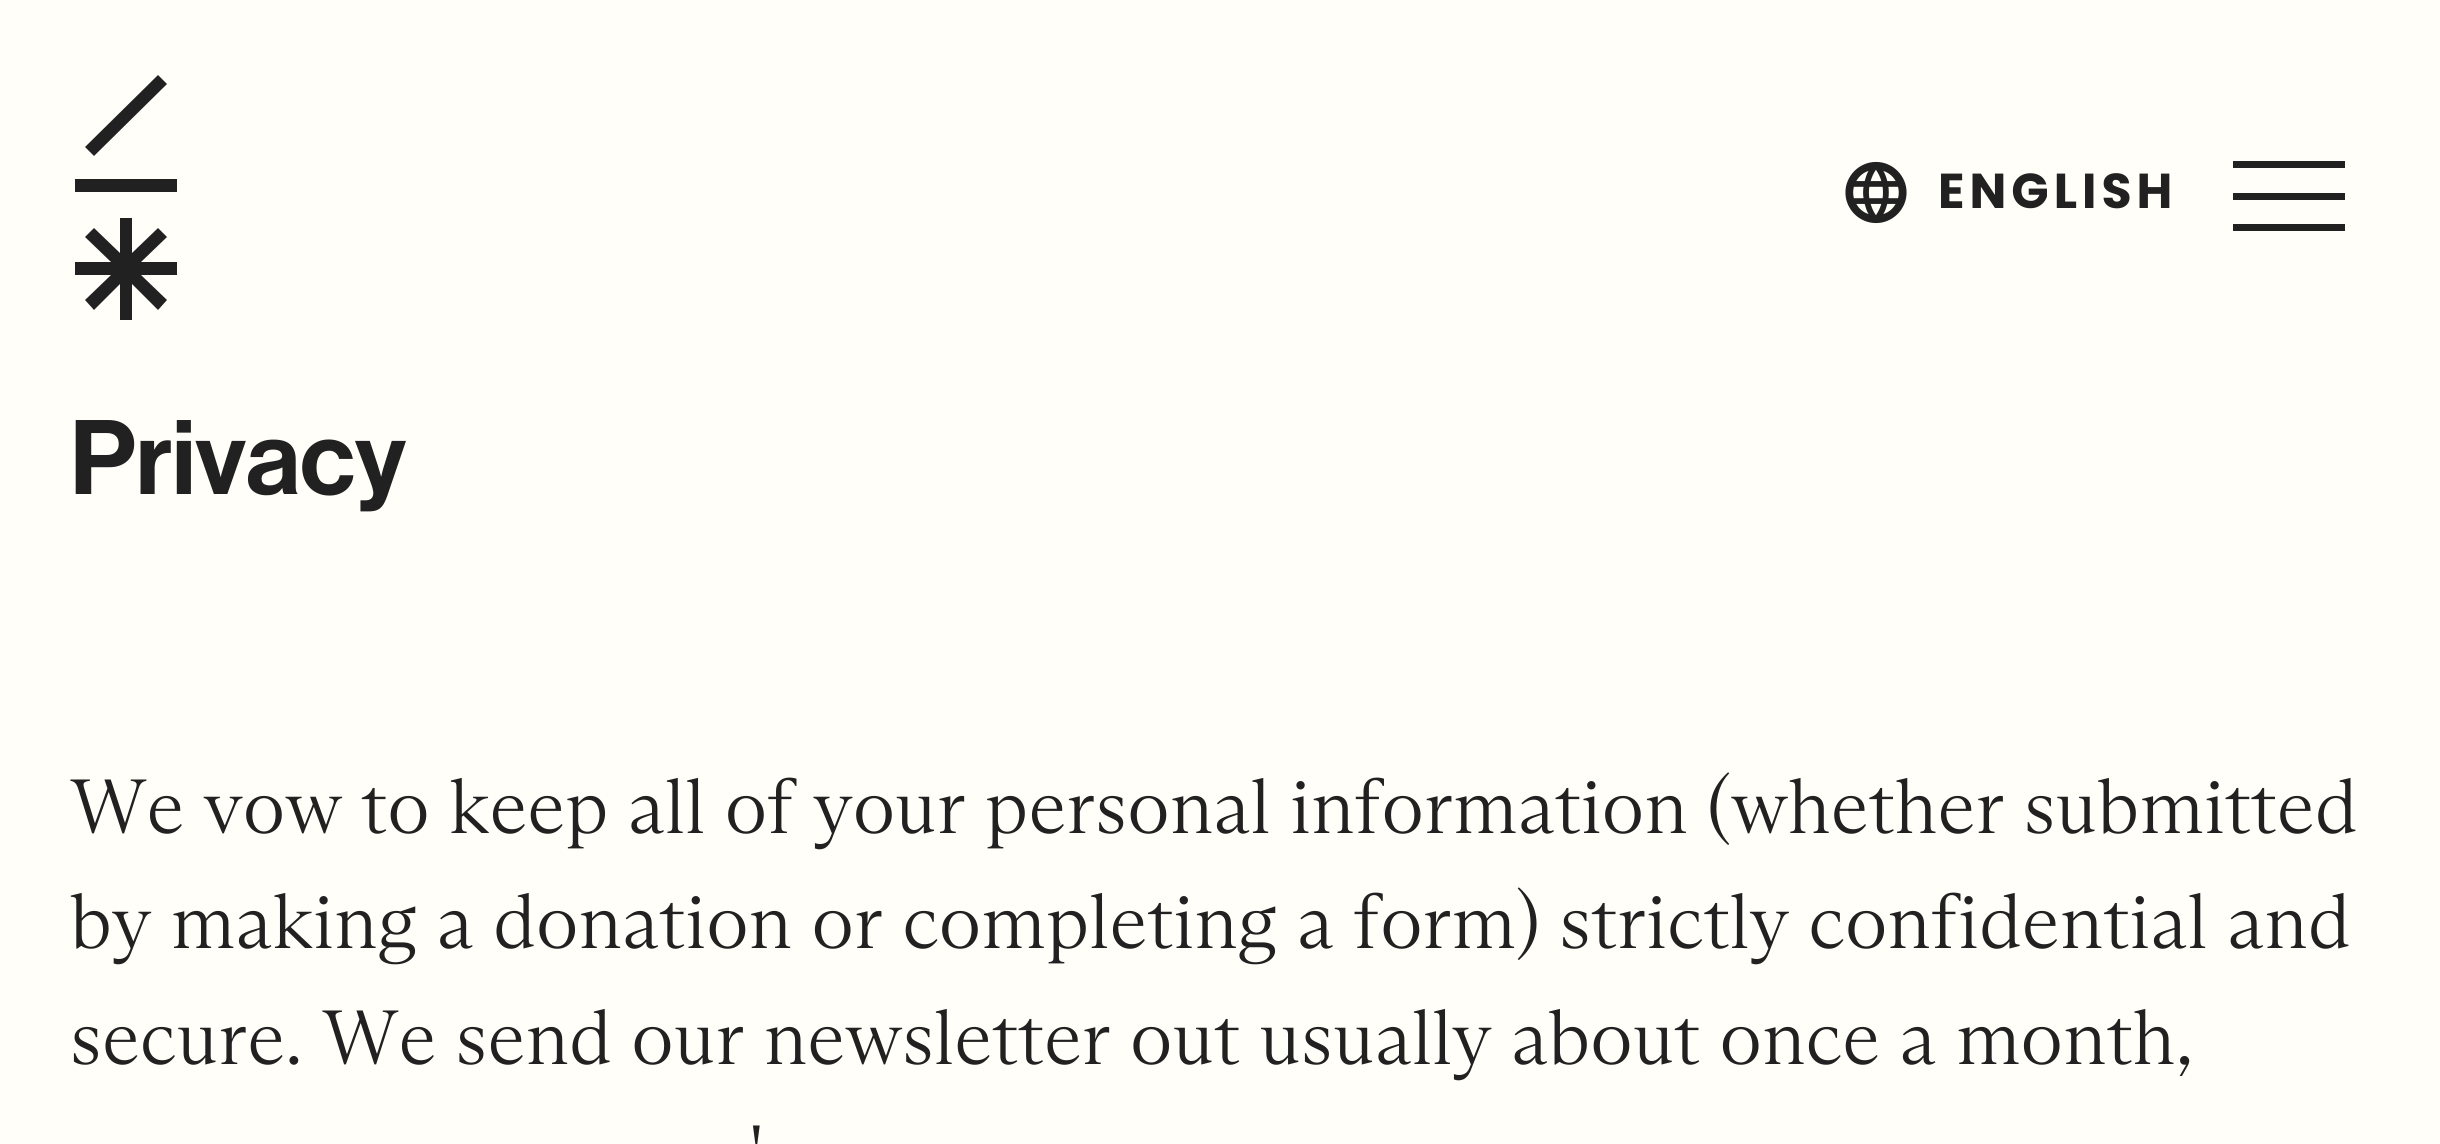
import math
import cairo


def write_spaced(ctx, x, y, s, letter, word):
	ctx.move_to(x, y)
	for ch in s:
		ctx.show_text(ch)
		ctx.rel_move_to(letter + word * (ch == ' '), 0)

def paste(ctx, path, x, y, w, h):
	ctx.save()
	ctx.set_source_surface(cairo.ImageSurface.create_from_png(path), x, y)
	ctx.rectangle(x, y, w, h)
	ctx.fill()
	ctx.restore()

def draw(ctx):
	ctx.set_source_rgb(1, 0.996, 0.976)
	ctx.paint()
	ctx.set_source_rgb(0.133, 0.129, 0.129)
	ctx.new_path()
	ctx.move_to(85, 147)
	ctx.line_to(158, 75)
	ctx.line_to(167, 84)
	ctx.line_to(94, 156)
	ctx.close_path()
	ctx.fill()
	ctx.rectangle(75, 179, 102, 13)
	ctx.fill()
	ctx.new_path()
	ctx.move_to(177, 262)
	ctx.line_to(141, 262)
	ctx.line_to(167, 237)
	ctx.line_to(158, 228)
	ctx.line_to(132, 253)
	ctx.line_to(132, 218)
	ctx.line_to(120, 218)
	ctx.line_to(120, 253)
	ctx.line_to(94, 228)
	ctx.line_to(85, 237)
	ctx.line_to(111, 262)
	ctx.line_to(75, 262)
	ctx.line_to(75, 275)
	ctx.line_to(111, 275)
	ctx.line_to(85, 300)
	ctx.line_to(94, 310)
	ctx.line_to(120, 284)
	ctx.line_to(120, 320)
	ctx.line_to(132, 320)
	ctx.line_to(132, 284)
	ctx.line_to(158, 310)
	ctx.line_to(167, 300)
	ctx.line_to(141, 275)
	ctx.line_to(177, 275)
	ctx.close_path()
	ctx.fill()
	paste(ctx, 'media/1.png', 1845, 161, 62, 63)
	ctx.select_font_face('Poppins', cairo.FONT_SLANT_NORMAL, cairo.FONT_WEIGHT_BOLD)
	ctx.set_font_size(49)
	write_spaced(ctx, 1938, 208, 'ENGLISH', 5, 0)
	ctx.rectangle(2233, 224, 112, 7)
	ctx.rectangle(2233, 161, 112, 7)
	ctx.rectangle(2233, 193, 112, 7)
	ctx.fill()
	ctx.select_font_face('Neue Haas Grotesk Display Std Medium')
	ctx.set_font_size(103.5)
	ctx.move_to(70, 494)
	ctx.show_text('Privacy')
	ctx.select_font_face('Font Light')
	ctx.set_font_size(77)
	for x, y, s in [
		(70, 833, 'We vow to keep all of your personal information (whether submitted'),
		(70, 948, 'by making a donation or completing a form) strictly confidential and'),
		(70, 1064, 'secure. We send our newsletter out usually about once a month,'),
		(749, 1179, '\''),
	]:
		ctx.move_to(x, y)
		ctx.show_text(s)


surface = cairo.ImageSurface(cairo.FORMAT_RGB24, 2440, 1144)
ctx = cairo.Context(surface)
options = cairo.FontOptions()
options.set_hint_metrics(cairo.HINT_METRICS_OFF)
options.set_hint_style(cairo.HINT_STYLE_NONE)
ctx.set_font_options(options)
ctx.set_miter_limit(4)
draw(ctx)
surface.write_to_png('image.png')
